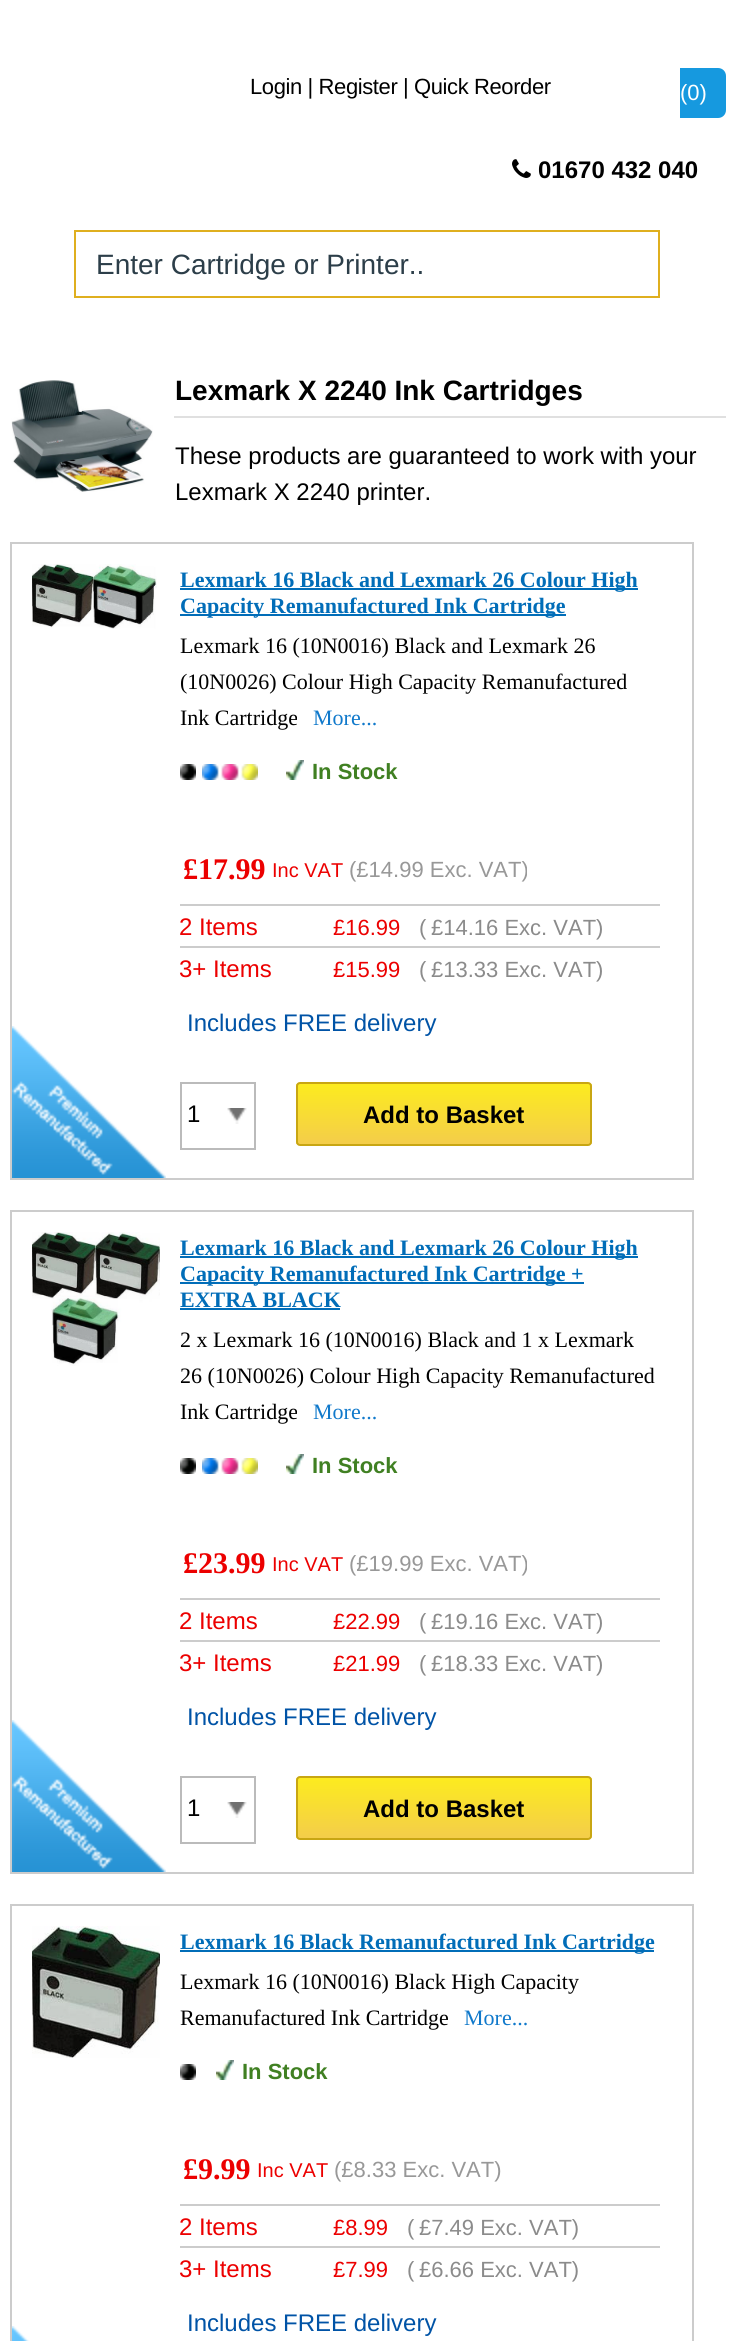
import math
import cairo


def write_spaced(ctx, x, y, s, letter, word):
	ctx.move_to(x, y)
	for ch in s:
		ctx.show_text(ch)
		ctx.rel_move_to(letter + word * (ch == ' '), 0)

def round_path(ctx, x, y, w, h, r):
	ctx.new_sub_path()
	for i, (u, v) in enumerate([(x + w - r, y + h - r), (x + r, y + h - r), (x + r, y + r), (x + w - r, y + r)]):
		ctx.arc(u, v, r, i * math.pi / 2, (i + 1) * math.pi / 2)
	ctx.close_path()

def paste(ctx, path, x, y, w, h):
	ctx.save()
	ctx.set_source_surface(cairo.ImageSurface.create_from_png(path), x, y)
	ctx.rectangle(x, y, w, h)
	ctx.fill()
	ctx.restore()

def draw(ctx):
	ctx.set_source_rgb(1, 1, 1)
	ctx.paint()
	ctx.select_font_face('Liberation Sans')
	ctx.set_font_size(22)
	ctx.set_source_rgb(0, 0, 0)
	write_spaced(ctx, 250, 94, 'Login | Register | Quick Reorder', -0.4, 0)
	ctx.set_source_rgb(0.086, 0.6, 0.875)
	ctx.new_path()
	ctx.move_to(680, 68)
	ctx.line_to(718, 68)
	ctx.curve_to(722.5, 68, 726, 71.5, 726, 76)
	ctx.line_to(726, 110)
	ctx.curve_to(726, 114.5, 722.5, 118, 718, 118)
	ctx.line_to(680, 118)
	ctx.close_path()
	ctx.fill()
	ctx.set_source_rgb(1, 1, 1)
	ctx.move_to(680, 100)
	ctx.show_text('(0)')
	paste(ctx, 'media/1.png', 512, 159, 19, 19)
	ctx.select_font_face('Liberation Sans', cairo.FONT_SLANT_NORMAL, cairo.FONT_WEIGHT_BOLD)
	ctx.set_font_size(24)
	ctx.set_source_rgb(0, 0, 0)
	ctx.move_to(538, 178)
	ctx.show_text('01670 432 040')
	ctx.rectangle(75, 231, 584, 66)
	ctx.set_source_rgb(0.875, 0.686, 0.122)
	ctx.stroke()
	ctx.select_font_face('Liberation Sans')
	ctx.set_font_size(28)
	ctx.set_source_rgb(0.173, 0.243, 0.286)
	ctx.move_to(96, 274)
	ctx.show_text('Enter Cartridge or Printer..')
	paste(ctx, 'media/2.png', 11, 380, 142, 112)
	ctx.set_source_rgb(0.878, 0.878, 0.878)
	ctx.rectangle(174, 416, 552, 2)
	ctx.fill()
	ctx.select_font_face('Liberation Sans', cairo.FONT_SLANT_NORMAL, cairo.FONT_WEIGHT_BOLD)
	ctx.set_source_rgb(0, 0, 0)
	ctx.move_to(175, 400)
	ctx.show_text('Lexmark X 2240 Ink Cartridges')
	ctx.select_font_face('Liberation Sans')
	ctx.set_font_size(24)
	ctx.move_to(175, 464)
	ctx.show_text('These products are guaranteed to work with your')
	ctx.move_to(175, 500)
	ctx.show_text('Lexmark X 2240 printer.')
	ctx.rectangle(11, 543, 682, 636)
	ctx.set_source_rgb(0.8, 0.8, 0.8)
	ctx.stroke()
	paste(ctx, 'media/3.png', 32, 564, 125, 65)
	ctx.set_source_rgb(0.004, 0.427, 0.722)
	ctx.rectangle(180, 588, 458, 2)
	ctx.fill()
	ctx.select_font_face('Liberation Serif', cairo.FONT_SLANT_NORMAL, cairo.FONT_WEIGHT_BOLD)
	ctx.set_font_size(22)
	ctx.move_to(180, 587)
	ctx.show_text('Lexmark 16 Black and Lexmark 26 Colour High')
	ctx.rectangle(180, 614, 386, 2)
	ctx.fill()
	ctx.move_to(180, 613)
	ctx.show_text('Capacity Remanufactured Ink Cartridge')
	ctx.select_font_face('Liberation Serif')
	ctx.set_source_rgb(0, 0, 0)
	for x, y, s in [
		(180, 653, 'Lexmark 16 (10N0016) Black and Lexmark 26'),
		(180, 689, '(10N0026) Colour High Capacity Remanufactured'),
		(180, 725, 'Ink Cartridge'),
	]:
		ctx.move_to(x, y)
		ctx.show_text(s)
	ctx.set_source_rgb(0.063, 0.475, 0.796)
	ctx.move_to(313, 725)
	ctx.show_text('More...')
	paste(ctx, 'media/4.png', 180, 764, 16, 16)
	paste(ctx, 'media/5.png', 202, 764, 56, 16)
	paste(ctx, 'media/6.png', 286, 760, 18, 20)
	ctx.select_font_face('Liberation Sans', cairo.FONT_SLANT_NORMAL, cairo.FONT_WEIGHT_BOLD)
	ctx.set_source_rgb(0.251, 0.502, 0.133)
	ctx.move_to(312, 779)
	ctx.show_text('In Stock')
	paste(ctx, 'media/7.png', 12, 1026, 154, 152)
	ctx.select_font_face('Liberation Serif', cairo.FONT_SLANT_NORMAL, cairo.FONT_WEIGHT_BOLD)
	ctx.set_font_size(30)
	ctx.set_source_rgb(0.922, 0, 0)
	ctx.move_to(183, 879)
	ctx.show_text('£17.99')
	ctx.select_font_face('Liberation Sans')
	ctx.set_font_size(20)
	ctx.move_to(272, 877)
	ctx.show_text('Inc VAT')
	ctx.set_font_size(22)
	ctx.set_source_rgb(0.596, 0.596, 0.596)
	ctx.move_to(349, 877)
	ctx.show_text('(£14.99 Exc. VAT)')
	ctx.set_source_rgb(0.8, 0.8, 0.8)
	ctx.rectangle(180, 904, 480, 2)
	ctx.fill()
	ctx.set_font_size(24)
	ctx.set_source_rgb(0.922, 0, 0)
	ctx.move_to(179, 935)
	ctx.show_text('2 Items')
	ctx.set_font_size(22)
	ctx.move_to(333, 935)
	ctx.show_text('£16.99')
	ctx.set_source_rgb(0.545, 0.545, 0.545)
	ctx.move_to(419, 935)
	ctx.show_text('(')
	ctx.move_to(431, 935)
	ctx.show_text('£14.16 Exc. VAT)')
	ctx.set_source_rgb(0.8, 0.8, 0.8)
	ctx.rectangle(180, 946, 480, 2)
	ctx.fill()
	ctx.set_font_size(24)
	ctx.set_source_rgb(0.922, 0, 0)
	ctx.move_to(179, 977)
	ctx.show_text('3+ Items')
	ctx.set_font_size(22)
	ctx.move_to(333, 977)
	ctx.show_text('£15.99')
	ctx.set_source_rgb(0.545, 0.545, 0.545)
	ctx.move_to(419, 977)
	ctx.show_text('(')
	ctx.move_to(431, 977)
	ctx.show_text('£13.33 Exc. VAT)')
	ctx.set_font_size(24)
	ctx.set_source_rgb(0, 0.325, 0.651)
	ctx.move_to(187, 1031)
	ctx.show_text('Includes FREE delivery')
	ctx.rectangle(181, 1083, 74, 66)
	ctx.set_source_rgb(0.733, 0.733, 0.733)
	ctx.stroke()
	paste(ctx, 'media/8.png', 227, 1108, 20, 16)
	ctx.set_source_rgb(0, 0, 0)
	ctx.move_to(187, 1122)
	ctx.show_text('1')
	ctx.save()
	round_path(ctx, 296, 1082, 296, 64, 4)
	ctx.clip()
	gradient = cairo.LinearGradient(444, 1084, 444, 1144)
	gradient.add_color_stop_rgba(0, 0.988, 0.922, 0.122, 1)
	gradient.add_color_stop_rgba(1, 0.957, 0.804, 0.29, 1)
	ctx.set_source(gradient)
	ctx.rectangle(296, 1084, 296, 60)
	ctx.fill()
	ctx.restore()
	round_path(ctx, 297, 1083, 294, 62, 3)
	ctx.set_source_rgb(0.784, 0.651, 0.078)
	ctx.stroke()
	ctx.select_font_face('Liberation Sans', cairo.FONT_SLANT_NORMAL, cairo.FONT_WEIGHT_BOLD)
	ctx.set_source_rgb(0, 0, 0)
	ctx.move_to(363, 1123)
	ctx.show_text('Add to Basket')
	ctx.rectangle(11, 1211, 682, 662)
	ctx.set_source_rgb(0.8, 0.8, 0.8)
	ctx.stroke()
	paste(ctx, 'media/9.png', 32, 1232, 128, 134)
	ctx.set_source_rgb(0.004, 0.427, 0.722)
	ctx.rectangle(180, 1256, 458, 2)
	ctx.fill()
	ctx.select_font_face('Liberation Serif', cairo.FONT_SLANT_NORMAL, cairo.FONT_WEIGHT_BOLD)
	ctx.set_font_size(22)
	ctx.move_to(180, 1255)
	ctx.show_text('Lexmark 16 Black and Lexmark 26 Colour High')
	ctx.rectangle(180, 1282, 404, 2)
	ctx.fill()
	ctx.move_to(180, 1281)
	ctx.show_text('Capacity Remanufactured Ink Cartridge +')
	ctx.move_to(180, 1307)
	ctx.show_text('EXTRA BLACK')
	ctx.rectangle(180, 1308, 160, 2)
	ctx.fill()
	ctx.select_font_face('Liberation Serif')
	ctx.set_source_rgb(0, 0, 0)
	for x, y, s in [
		(180, 1347, '2 x Lexmark 16 (10N0016) Black and 1 x Lexmark'),
		(180, 1383, '26 (10N0026) Colour High Capacity Remanufactured'),
		(180, 1419, 'Ink Cartridge'),
	]:
		ctx.move_to(x, y)
		ctx.show_text(s)
	ctx.set_source_rgb(0.063, 0.475, 0.796)
	ctx.move_to(313, 1419)
	ctx.show_text('More...')
	paste(ctx, 'media/4.png', 180, 1458, 16, 16)
	paste(ctx, 'media/5.png', 202, 1458, 56, 16)
	paste(ctx, 'media/6.png', 286, 1454, 18, 20)
	ctx.select_font_face('Liberation Sans', cairo.FONT_SLANT_NORMAL, cairo.FONT_WEIGHT_BOLD)
	ctx.set_source_rgb(0.251, 0.502, 0.133)
	ctx.move_to(312, 1473)
	ctx.show_text('In Stock')
	paste(ctx, 'media/7.png', 12, 1720, 154, 152)
	ctx.select_font_face('Liberation Serif', cairo.FONT_SLANT_NORMAL, cairo.FONT_WEIGHT_BOLD)
	ctx.set_font_size(30)
	ctx.set_source_rgb(0.922, 0, 0)
	ctx.move_to(183, 1573)
	ctx.show_text('£23.99')
	ctx.select_font_face('Liberation Sans')
	ctx.set_font_size(20)
	ctx.move_to(272, 1571)
	ctx.show_text('Inc VAT')
	ctx.set_font_size(22)
	ctx.set_source_rgb(0.596, 0.596, 0.596)
	ctx.move_to(349, 1571)
	ctx.show_text('(£19.99 Exc. VAT)')
	ctx.set_source_rgb(0.8, 0.8, 0.8)
	ctx.rectangle(180, 1598, 480, 2)
	ctx.fill()
	ctx.set_font_size(24)
	ctx.set_source_rgb(0.922, 0, 0)
	ctx.move_to(179, 1629)
	ctx.show_text('2 Items')
	ctx.set_font_size(22)
	ctx.move_to(333, 1629)
	ctx.show_text('£22.99')
	ctx.set_source_rgb(0.545, 0.545, 0.545)
	ctx.move_to(419, 1629)
	ctx.show_text('(')
	ctx.move_to(431, 1629)
	ctx.show_text('£19.16 Exc. VAT)')
	ctx.set_source_rgb(0.8, 0.8, 0.8)
	ctx.rectangle(180, 1640, 480, 2)
	ctx.fill()
	ctx.set_font_size(24)
	ctx.set_source_rgb(0.922, 0, 0)
	ctx.move_to(179, 1671)
	ctx.show_text('3+ Items')
	ctx.set_font_size(22)
	ctx.move_to(333, 1671)
	ctx.show_text('£21.99')
	ctx.set_source_rgb(0.545, 0.545, 0.545)
	ctx.move_to(419, 1671)
	ctx.show_text('(')
	ctx.move_to(431, 1671)
	ctx.show_text('£18.33 Exc. VAT)')
	ctx.set_font_size(24)
	ctx.set_source_rgb(0, 0.325, 0.651)
	ctx.move_to(187, 1725)
	ctx.show_text('Includes FREE delivery')
	ctx.rectangle(181, 1777, 74, 66)
	ctx.set_source_rgb(0.733, 0.733, 0.733)
	ctx.stroke()
	paste(ctx, 'media/8.png', 227, 1802, 20, 16)
	ctx.set_source_rgb(0, 0, 0)
	ctx.move_to(187, 1816)
	ctx.show_text('1')
	ctx.save()
	round_path(ctx, 296, 1776, 296, 64, 4)
	ctx.clip()
	gradient = cairo.LinearGradient(444, 1778, 444, 1838)
	gradient.add_color_stop_rgba(0, 0.988, 0.922, 0.122, 1)
	gradient.add_color_stop_rgba(1, 0.957, 0.804, 0.29, 1)
	ctx.set_source(gradient)
	ctx.rectangle(296, 1778, 296, 60)
	ctx.fill()
	ctx.restore()
	round_path(ctx, 297, 1777, 294, 62, 3)
	ctx.set_source_rgb(0.784, 0.651, 0.078)
	ctx.stroke()
	ctx.select_font_face('Liberation Sans', cairo.FONT_SLANT_NORMAL, cairo.FONT_WEIGHT_BOLD)
	ctx.set_source_rgb(0, 0, 0)
	ctx.move_to(363, 1817)
	ctx.show_text('Add to Basket')
	ctx.rectangle(11, 1905, 682, 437)
	ctx.set_source_rgb(0.8, 0.8, 0.8)
	ctx.stroke()
	paste(ctx, 'media/10.png', 32, 1926, 128, 132)
	ctx.set_source_rgb(0.004, 0.427, 0.722)
	ctx.rectangle(180, 1950, 474, 2)
	ctx.fill()
	ctx.select_font_face('Liberation Serif', cairo.FONT_SLANT_NORMAL, cairo.FONT_WEIGHT_BOLD)
	ctx.set_font_size(22)
	ctx.move_to(180, 1949)
	ctx.show_text('Lexmark 16 Black Remanufactured Ink Cartridge')
	ctx.select_font_face('Liberation Serif')
	ctx.set_source_rgb(0, 0, 0)
	ctx.move_to(180, 1989)
	ctx.show_text('Lexmark 16 (10N0016) Black High Capacity')
	ctx.move_to(180, 2025)
	ctx.show_text('Remanufactured Ink Cartridge')
	ctx.set_source_rgb(0.063, 0.475, 0.796)
	ctx.move_to(464, 2025)
	ctx.show_text('More...')
	paste(ctx, 'media/4.png', 180, 2064, 16, 16)
	paste(ctx, 'media/6.png', 216, 2060, 18, 20)
	ctx.select_font_face('Liberation Sans', cairo.FONT_SLANT_NORMAL, cairo.FONT_WEIGHT_BOLD)
	ctx.set_source_rgb(0.251, 0.502, 0.133)
	ctx.move_to(242, 2079)
	ctx.show_text('In Stock')
	paste(ctx, 'media/11.png', 12, 2326, 17, 15)
	ctx.select_font_face('Liberation Serif', cairo.FONT_SLANT_NORMAL, cairo.FONT_WEIGHT_BOLD)
	ctx.set_font_size(30)
	ctx.set_source_rgb(0.922, 0, 0)
	ctx.move_to(183, 2179)
	ctx.show_text('£9.99')
	ctx.select_font_face('Liberation Sans')
	ctx.set_font_size(20)
	ctx.move_to(257, 2177)
	ctx.show_text('Inc VAT')
	ctx.set_font_size(22)
	ctx.set_source_rgb(0.596, 0.596, 0.596)
	ctx.move_to(334, 2177)
	ctx.show_text('(£8.33 Exc. VAT)')
	ctx.set_source_rgb(0.8, 0.8, 0.8)
	ctx.rectangle(180, 2204, 480, 2)
	ctx.fill()
	ctx.set_font_size(24)
	ctx.set_source_rgb(0.922, 0, 0)
	ctx.move_to(179, 2235)
	ctx.show_text('2 Items')
	ctx.set_font_size(22)
	ctx.move_to(333, 2235)
	ctx.show_text('£8.99')
	ctx.set_source_rgb(0.545, 0.545, 0.545)
	ctx.move_to(407, 2235)
	ctx.show_text('(')
	ctx.move_to(419, 2235)
	ctx.show_text('£7.49 Exc. VAT)')
	ctx.set_source_rgb(0.8, 0.8, 0.8)
	ctx.rectangle(180, 2246, 480, 2)
	ctx.fill()
	ctx.set_font_size(24)
	ctx.set_source_rgb(0.922, 0, 0)
	ctx.move_to(179, 2277)
	ctx.show_text('3+ Items')
	ctx.set_font_size(22)
	ctx.move_to(333, 2277)
	ctx.show_text('£7.99')
	ctx.set_source_rgb(0.545, 0.545, 0.545)
	ctx.move_to(407, 2277)
	ctx.show_text('(')
	ctx.move_to(419, 2277)
	ctx.show_text('£6.66 Exc. VAT)')
	ctx.set_font_size(24)
	ctx.set_source_rgb(0, 0.325, 0.651)
	ctx.move_to(187, 2331)
	ctx.show_text('Includes FREE delivery')


surface = cairo.ImageSurface(cairo.FORMAT_RGB24, 744, 2341)
ctx = cairo.Context(surface)
options = cairo.FontOptions()
options.set_hint_metrics(cairo.HINT_METRICS_OFF)
options.set_hint_style(cairo.HINT_STYLE_NONE)
ctx.set_font_options(options)
ctx.set_miter_limit(4)
draw(ctx)
surface.write_to_png('image.png')
